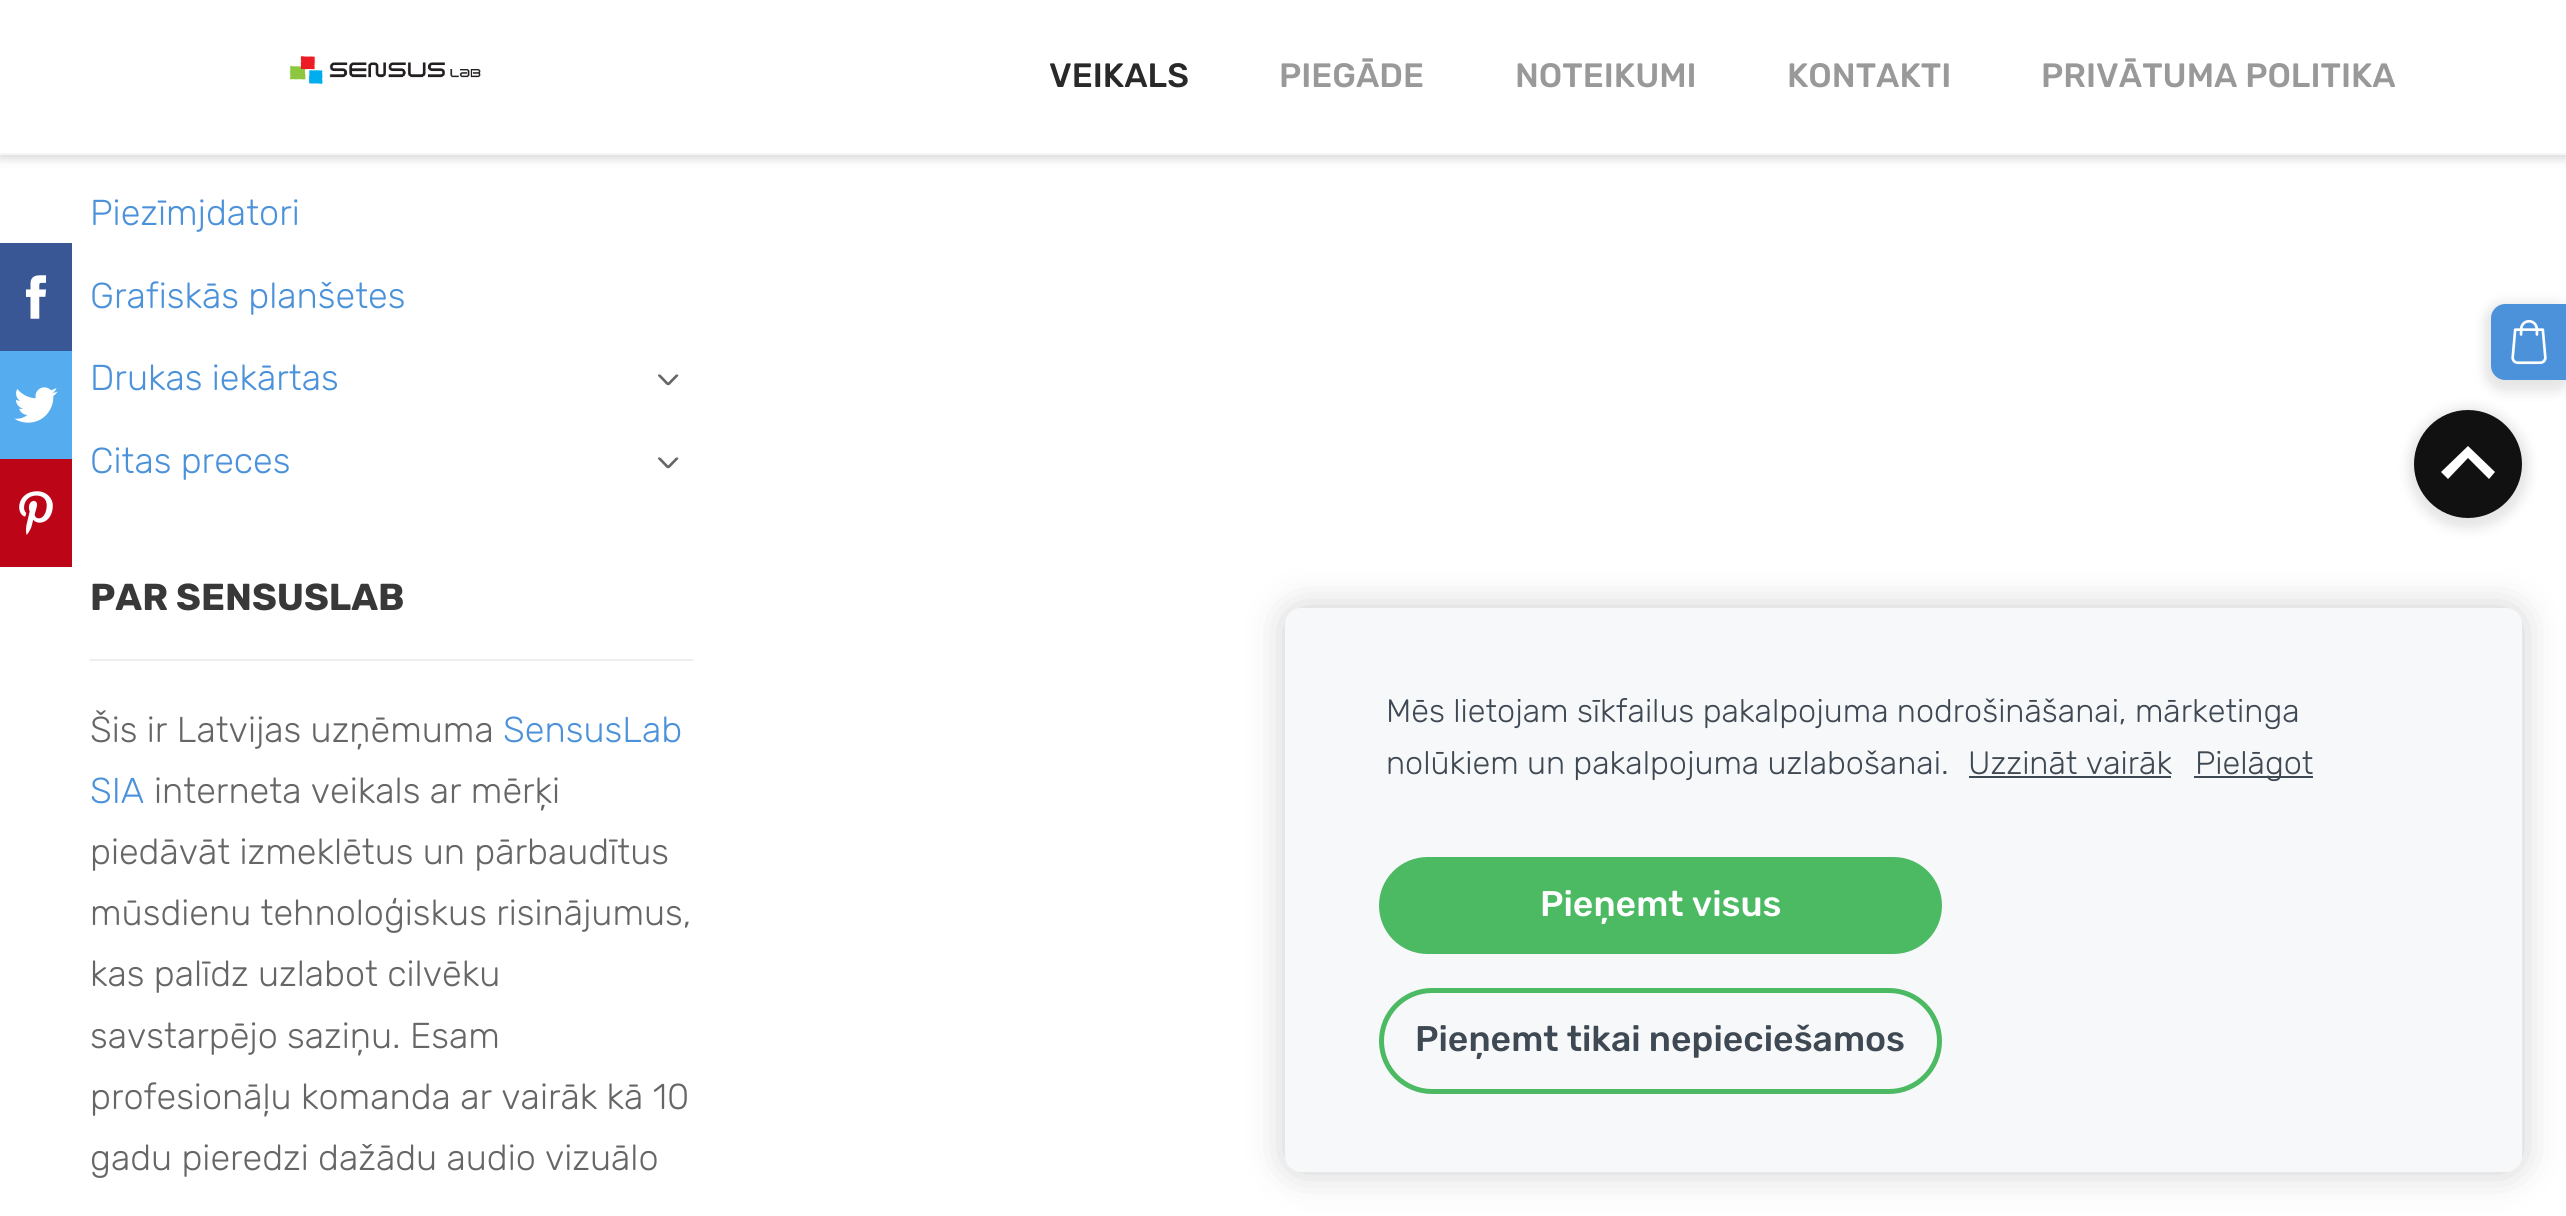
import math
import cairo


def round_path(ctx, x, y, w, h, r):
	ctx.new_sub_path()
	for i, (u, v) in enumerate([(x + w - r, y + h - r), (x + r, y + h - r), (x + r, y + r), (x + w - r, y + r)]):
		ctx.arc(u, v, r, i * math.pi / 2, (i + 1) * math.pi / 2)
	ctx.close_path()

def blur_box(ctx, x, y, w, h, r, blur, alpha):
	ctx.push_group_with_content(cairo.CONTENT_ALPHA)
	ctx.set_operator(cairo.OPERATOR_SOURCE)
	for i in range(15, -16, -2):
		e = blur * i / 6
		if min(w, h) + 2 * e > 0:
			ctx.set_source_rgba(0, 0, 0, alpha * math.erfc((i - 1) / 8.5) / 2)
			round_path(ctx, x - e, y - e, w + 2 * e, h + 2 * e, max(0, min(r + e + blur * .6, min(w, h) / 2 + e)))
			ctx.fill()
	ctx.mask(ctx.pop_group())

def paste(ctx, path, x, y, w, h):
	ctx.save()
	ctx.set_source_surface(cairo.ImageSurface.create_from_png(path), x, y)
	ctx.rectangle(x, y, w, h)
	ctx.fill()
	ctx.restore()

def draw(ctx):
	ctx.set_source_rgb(1, 1, 1)
	ctx.paint()
	ctx.set_source_rgb(0.227, 0.341, 0.584)
	ctx.rectangle(0, 243, 72, 108)
	ctx.fill()
	paste(ctx, 'media/1.png', 25, 275, 22, 44)
	ctx.set_source_rgb(0.333, 0.675, 0.933)
	ctx.rectangle(0, 351, 72, 108)
	ctx.fill()
	paste(ctx, 'media/2.png', 14, 387, 44, 36)
	ctx.set_source_rgb(0.737, 0.024, 0.094)
	ctx.rectangle(0, 459, 72, 108)
	ctx.fill()
	paste(ctx, 'media/3.png', 19, 491, 34, 44)
	ctx.set_source_rgb(0, 0, 0)
	blur_box(ctx, 0, 2, 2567, 156, 0, 5.5, 0.17)
	ctx.set_source_rgb(1, 1, 1)
	ctx.rectangle(0, 0, 2566, 153)
	ctx.fill()
	ctx.set_source_rgb(0.961, 0.961, 0.961)
	ctx.rectangle(0, 153, 2566, 2)
	ctx.fill()
	paste(ctx, 'media/4.png', 289, 56, 192, 28)
	ctx.select_font_face('Rubik Medium')
	ctx.set_font_size(33.75)
	ctx.set_source_rgb(0.161, 0.161, 0.161)
	ctx.move_to(1049, 87)
	ctx.show_text('VEIKALS')
	ctx.set_source_rgb(0.6, 0.6, 0.6)
	for x, y, s in [
		(1279, 87, 'PIEGĀDE'),
		(1515, 87, 'NOTEIKUMI'),
		(1787, 87, 'KONTAKTI'),
		(2041, 87, 'PRIVĀTUMA POLITIKA'),
	]:
		ctx.move_to(x, y)
		ctx.show_text(s)
	ctx.select_font_face('Rubik Light')
	ctx.set_font_size(36)
	ctx.set_source_rgb(0.298, 0.573, 0.855)
	for x, y, s in [
		(90, 225, 'Piezīmjdatori'),
		(90, 308, 'Grafiskās planšetes'),
		(90, 390, 'Drukas iekārtas'),
	]:
		ctx.move_to(x, y)
		ctx.show_text(s)
	ctx.set_font_size(43)
	ctx.set_source_rgb(0.4, 0.4, 0.4)
	ctx.save()
	ctx.translate(654, 372)
	ctx.rotate(90 * math.pi / 180)
	ctx.move_to(0, 0)
	ctx.show_text('›')
	ctx.restore()
	ctx.set_font_size(36)
	ctx.set_source_rgb(0.298, 0.573, 0.855)
	ctx.move_to(90, 473)
	ctx.show_text('Citas preces')
	ctx.set_font_size(43)
	ctx.set_source_rgb(0.4, 0.4, 0.4)
	ctx.save()
	ctx.translate(654, 455)
	ctx.rotate(90 * math.pi / 180)
	ctx.move_to(0, 0)
	ctx.show_text('›')
	ctx.restore()
	ctx.set_source_rgb(0.933, 0.933, 0.933)
	ctx.rectangle(90, 659, 603, 2)
	ctx.fill()
	ctx.select_font_face('Rubik', cairo.FONT_SLANT_NORMAL, cairo.FONT_WEIGHT_BOLD)
	ctx.set_font_size(37.5)
	ctx.set_source_rgb(0.22, 0.22, 0.22)
	ctx.move_to(90, 610)
	ctx.show_text('PAR SENSUSLAB')
	ctx.select_font_face('Rubik Light')
	ctx.set_font_size(36)
	ctx.set_source_rgb(0.4, 0.4, 0.4)
	ctx.move_to(90, 742)
	ctx.show_text('Šis ir Latvijas uzņēmuma')
	ctx.set_source_rgb(0.298, 0.573, 0.855)
	ctx.move_to(503, 742)
	ctx.show_text('SensusLab')
	ctx.move_to(90, 803)
	ctx.show_text('SIA')
	ctx.set_source_rgb(0.4, 0.4, 0.4)
	for x, y, s in [
		(154, 803, 'interneta veikals ar mērķi'),
		(90, 864, 'piedāvāt izmeklētus un pārbaudītus'),
		(90, 925, 'mūsdienu tehnoloģiskus risinājumus,'),
		(90, 986, 'kas palīdz uzlabot cilvēku'),
		(90, 1048, 'savstarpējo saziņu. Esam'),
		(90, 1109, 'profesionāļu komanda ar vairāk kā 10'),
		(90, 1170, 'gadu pieredzi dažādu audio vizuālo'),
	]:
		ctx.move_to(x, y)
		ctx.show_text(s)
	ctx.set_source_rgb(0, 0, 0)
	blur_box(ctx, 2484, 302, 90, 90, 20, 5.5, 0.1)
	ctx.set_source_rgb(0.298, 0.573, 0.855)
	ctx.new_path()
	ctx.move_to(2505, 304)
	ctx.line_to(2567, 304)
	ctx.line_to(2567, 380)
	ctx.line_to(2505, 380)
	ctx.curve_to(2497.5, 380, 2491, 373.5, 2491, 366)
	ctx.line_to(2491, 318)
	ctx.curve_to(2491, 310.5, 2497.5, 304, 2505, 304)
	ctx.close_path()
	ctx.fill()
	paste(ctx, 'media/5.png', 2511, 320, 36, 45)
	ctx.set_source_rgb(0, 0, 0)
	blur_box(ctx, 2408, 407, 121, 122, 60.5, 5.5, 0.1)
	ctx.set_source_rgb(0.067, 0.067, 0.067)
	ctx.arc(2468, 464, 54, 0, 2 * math.pi)
	ctx.fill()
	ctx.set_source_rgb(1, 1, 1)
	ctx.new_path()
	ctx.move_to(2448, 479)
	ctx.line_to(2468, 458)
	ctx.line_to(2489, 479)
	ctx.line_to(2495, 472)
	ctx.line_to(2468, 446)
	ctx.line_to(2441, 472)
	ctx.close_path()
	ctx.fill()
	ctx.set_source_rgb(0, 0, 0)
	blur_box(ctx, 1285, 608, 1237, 564, 16, 19, 0.2)
	ctx.set_source_rgb(0.965, 0.969, 0.976)
	round_path(ctx, 1285, 608, 1237, 564, 16)
	ctx.fill()
	ctx.set_font_size(32.4)
	ctx.set_source_rgb(0.247, 0.286, 0.329)
	for x, y, s in [
		(1386, 722, 'Mēs lietojam sīkfailus pakalpojuma nodrošināšanai, mārketinga'),
		(1386, 774, 'nolūkiem un pakalpojuma uzlabošanai.'),
		(1968, 774, 'Uzzināt vairāk'),
	]:
		ctx.move_to(x, y)
		ctx.show_text(s)
	ctx.rectangle(1969, 776, 202, 2)
	ctx.fill()
	ctx.rectangle(2194, 776, 119, 2)
	ctx.fill()
	ctx.move_to(2195, 774)
	ctx.show_text('Pielāgot')
	ctx.set_source_rgb(0.298, 0.725, 0.388)
	round_path(ctx, 1379, 857, 563, 97, 48.5)
	ctx.fill()
	ctx.select_font_face('Rubik Medium')
	ctx.set_font_size(35.6)
	ctx.set_source_rgb(1, 1, 1)
	ctx.move_to(1540, 916)
	ctx.show_text('Pieņemt visus')
	round_path(ctx, 1381.5, 990.5, 558, 101, 50.5)
	ctx.set_source_rgb(0.298, 0.725, 0.388)
	ctx.set_line_width(5)
	ctx.stroke()
	ctx.set_source_rgb(0.247, 0.286, 0.329)
	ctx.move_to(1415, 1051)
	ctx.show_text('Pieņemt tikai nepieciešamos')


surface = cairo.ImageSurface(cairo.FORMAT_RGB24, 2566, 1216)
ctx = cairo.Context(surface)
options = cairo.FontOptions()
options.set_hint_metrics(cairo.HINT_METRICS_OFF)
options.set_hint_style(cairo.HINT_STYLE_NONE)
ctx.set_font_options(options)
ctx.set_miter_limit(4)
draw(ctx)
surface.write_to_png('image.png')
